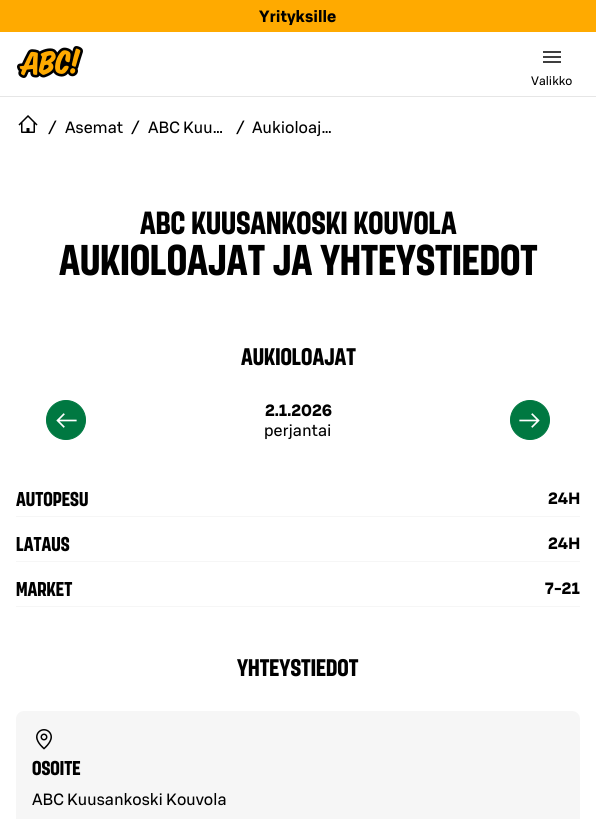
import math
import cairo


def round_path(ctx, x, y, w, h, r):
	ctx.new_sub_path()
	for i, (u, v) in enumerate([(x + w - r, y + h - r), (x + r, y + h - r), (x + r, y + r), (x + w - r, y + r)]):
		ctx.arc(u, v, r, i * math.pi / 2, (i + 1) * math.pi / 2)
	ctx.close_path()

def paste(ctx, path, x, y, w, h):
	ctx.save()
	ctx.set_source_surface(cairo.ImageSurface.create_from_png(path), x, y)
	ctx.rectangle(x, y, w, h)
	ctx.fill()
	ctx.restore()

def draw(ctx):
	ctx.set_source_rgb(1, 1, 1)
	ctx.paint()
	ctx.set_source_rgb(1, 0.667, 0)
	ctx.rectangle(0, 0, 596, 32)
	ctx.fill()
	ctx.select_font_face('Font', cairo.FONT_SLANT_NORMAL, cairo.FONT_WEIGHT_BOLD)
	ctx.set_font_size(16)
	ctx.set_source_rgb(0, 0, 0)
	ctx.move_to(259, 22)
	ctx.show_text('Yrityksille')
	ctx.set_source_rgb(0.902, 0.902, 0.902)
	ctx.rectangle(0, 96, 596, 1)
	ctx.fill()
	paste(ctx, 'media/1.png', 17, 46, 66, 32)
	paste(ctx, 'media/2.png', 543, 51, 18, 12)
	ctx.select_font_face('Font')
	ctx.set_font_size(12)
	ctx.set_source_rgb(0, 0, 0)
	ctx.move_to(531, 85)
	ctx.show_text('Valikko')
	paste(ctx, 'media/3.png', 18, 115, 20, 18)
	ctx.set_font_size(16)
	for x, y, s in [
		(48, 133, '/'),
		(65, 133, 'Asemat'),
		(131, 133, '/'),
		(148, 133, 'ABC Kuu…'),
		(236, 133, '/'),
		(252, 133, 'Aukioloaj…'),
	]:
		ctx.move_to(x, y)
		ctx.show_text(s)
	ctx.select_font_face('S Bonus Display', cairo.FONT_SLANT_NORMAL, cairo.FONT_WEIGHT_BOLD)
	ctx.set_font_size(32)
	ctx.move_to(140, 234)
	ctx.show_text('ABC KUUSANKOSKI KOUVOLA')
	ctx.set_font_size(43)
	ctx.move_to(59, 275)
	ctx.show_text('AUKIOLOAJAT JA YHTEYSTIEDOT')
	ctx.set_font_size(24)
	ctx.move_to(241, 365)
	ctx.show_text('AUKIOLOAJAT')
	ctx.set_source_rgb(0, 0.471, 0.255)
	ctx.new_path()
	ctx.arc(66, 420, 19.5, 0, 2 * math.pi)
	ctx.fill_preserve()
	ctx.set_line_width(1)
	ctx.stroke()
	paste(ctx, 'media/4.png', 56, 413, 21, 15)
	ctx.select_font_face('Font', cairo.FONT_SLANT_NORMAL, cairo.FONT_WEIGHT_BOLD)
	ctx.set_font_size(16)
	ctx.set_source_rgb(0, 0, 0)
	ctx.move_to(265, 416)
	ctx.show_text('2.1.2026')
	ctx.select_font_face('Font')
	ctx.move_to(264, 436)
	ctx.show_text('perjantai')
	ctx.set_source_rgb(0, 0.471, 0.255)
	ctx.new_path()
	ctx.arc(530, 420, 19.5, 0, 2 * math.pi)
	ctx.fill_preserve()
	ctx.stroke()
	paste(ctx, 'media/5.png', 519, 413, 21, 15)
	ctx.set_source_rgb(0.961, 0.961, 0.961)
	ctx.rectangle(16, 516, 564, 1)
	ctx.fill()
	ctx.select_font_face('S Bonus Display', cairo.FONT_SLANT_NORMAL, cairo.FONT_WEIGHT_BOLD)
	ctx.set_font_size(20)
	ctx.set_source_rgb(0, 0, 0)
	ctx.move_to(16, 506)
	ctx.show_text('AUTOPESU')
	ctx.select_font_face('Font', cairo.FONT_SLANT_NORMAL, cairo.FONT_WEIGHT_BOLD)
	ctx.set_font_size(16)
	ctx.move_to(548, 504)
	ctx.show_text('24H')
	ctx.set_source_rgb(0.961, 0.961, 0.961)
	ctx.rectangle(16, 561, 564, 1)
	ctx.fill()
	ctx.select_font_face('S Bonus Display', cairo.FONT_SLANT_NORMAL, cairo.FONT_WEIGHT_BOLD)
	ctx.set_font_size(20)
	ctx.set_source_rgb(0, 0, 0)
	ctx.move_to(16, 551)
	ctx.show_text('LATAUS')
	ctx.select_font_face('Font', cairo.FONT_SLANT_NORMAL, cairo.FONT_WEIGHT_BOLD)
	ctx.set_font_size(16)
	ctx.move_to(548, 549)
	ctx.show_text('24H')
	ctx.set_source_rgb(0.961, 0.961, 0.961)
	ctx.rectangle(16, 606, 564, 1)
	ctx.fill()
	ctx.select_font_face('S Bonus Display', cairo.FONT_SLANT_NORMAL, cairo.FONT_WEIGHT_BOLD)
	ctx.set_font_size(20)
	ctx.set_source_rgb(0, 0, 0)
	ctx.move_to(16, 596)
	ctx.show_text('MARKET')
	ctx.select_font_face('Font', cairo.FONT_SLANT_NORMAL, cairo.FONT_WEIGHT_BOLD)
	ctx.set_font_size(16)
	ctx.move_to(545, 594)
	ctx.show_text('7-21')
	ctx.select_font_face('S Bonus Display', cairo.FONT_SLANT_NORMAL, cairo.FONT_WEIGHT_BOLD)
	ctx.set_font_size(24)
	ctx.move_to(237, 676)
	ctx.show_text('YHTEYSTIEDOT')
	ctx.set_source_rgb(0.961, 0.961, 0.961)
	round_path(ctx, 16, 711, 564, 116, 8)
	ctx.fill()
	paste(ctx, 'media/6.png', 36, 729, 16, 21)
	ctx.set_font_size(20)
	ctx.set_source_rgb(0, 0, 0)
	ctx.move_to(32, 775)
	ctx.show_text('OSOITE')
	ctx.select_font_face('Font')
	ctx.set_font_size(16)
	ctx.move_to(32, 805)
	ctx.show_text('ABC Kuusankoski Kouvola')


surface = cairo.ImageSurface(cairo.FORMAT_RGB24, 596, 819)
ctx = cairo.Context(surface)
options = cairo.FontOptions()
options.set_hint_metrics(cairo.HINT_METRICS_OFF)
options.set_hint_style(cairo.HINT_STYLE_NONE)
ctx.set_font_options(options)
ctx.set_miter_limit(4)
draw(ctx)
surface.write_to_png('image.png')
